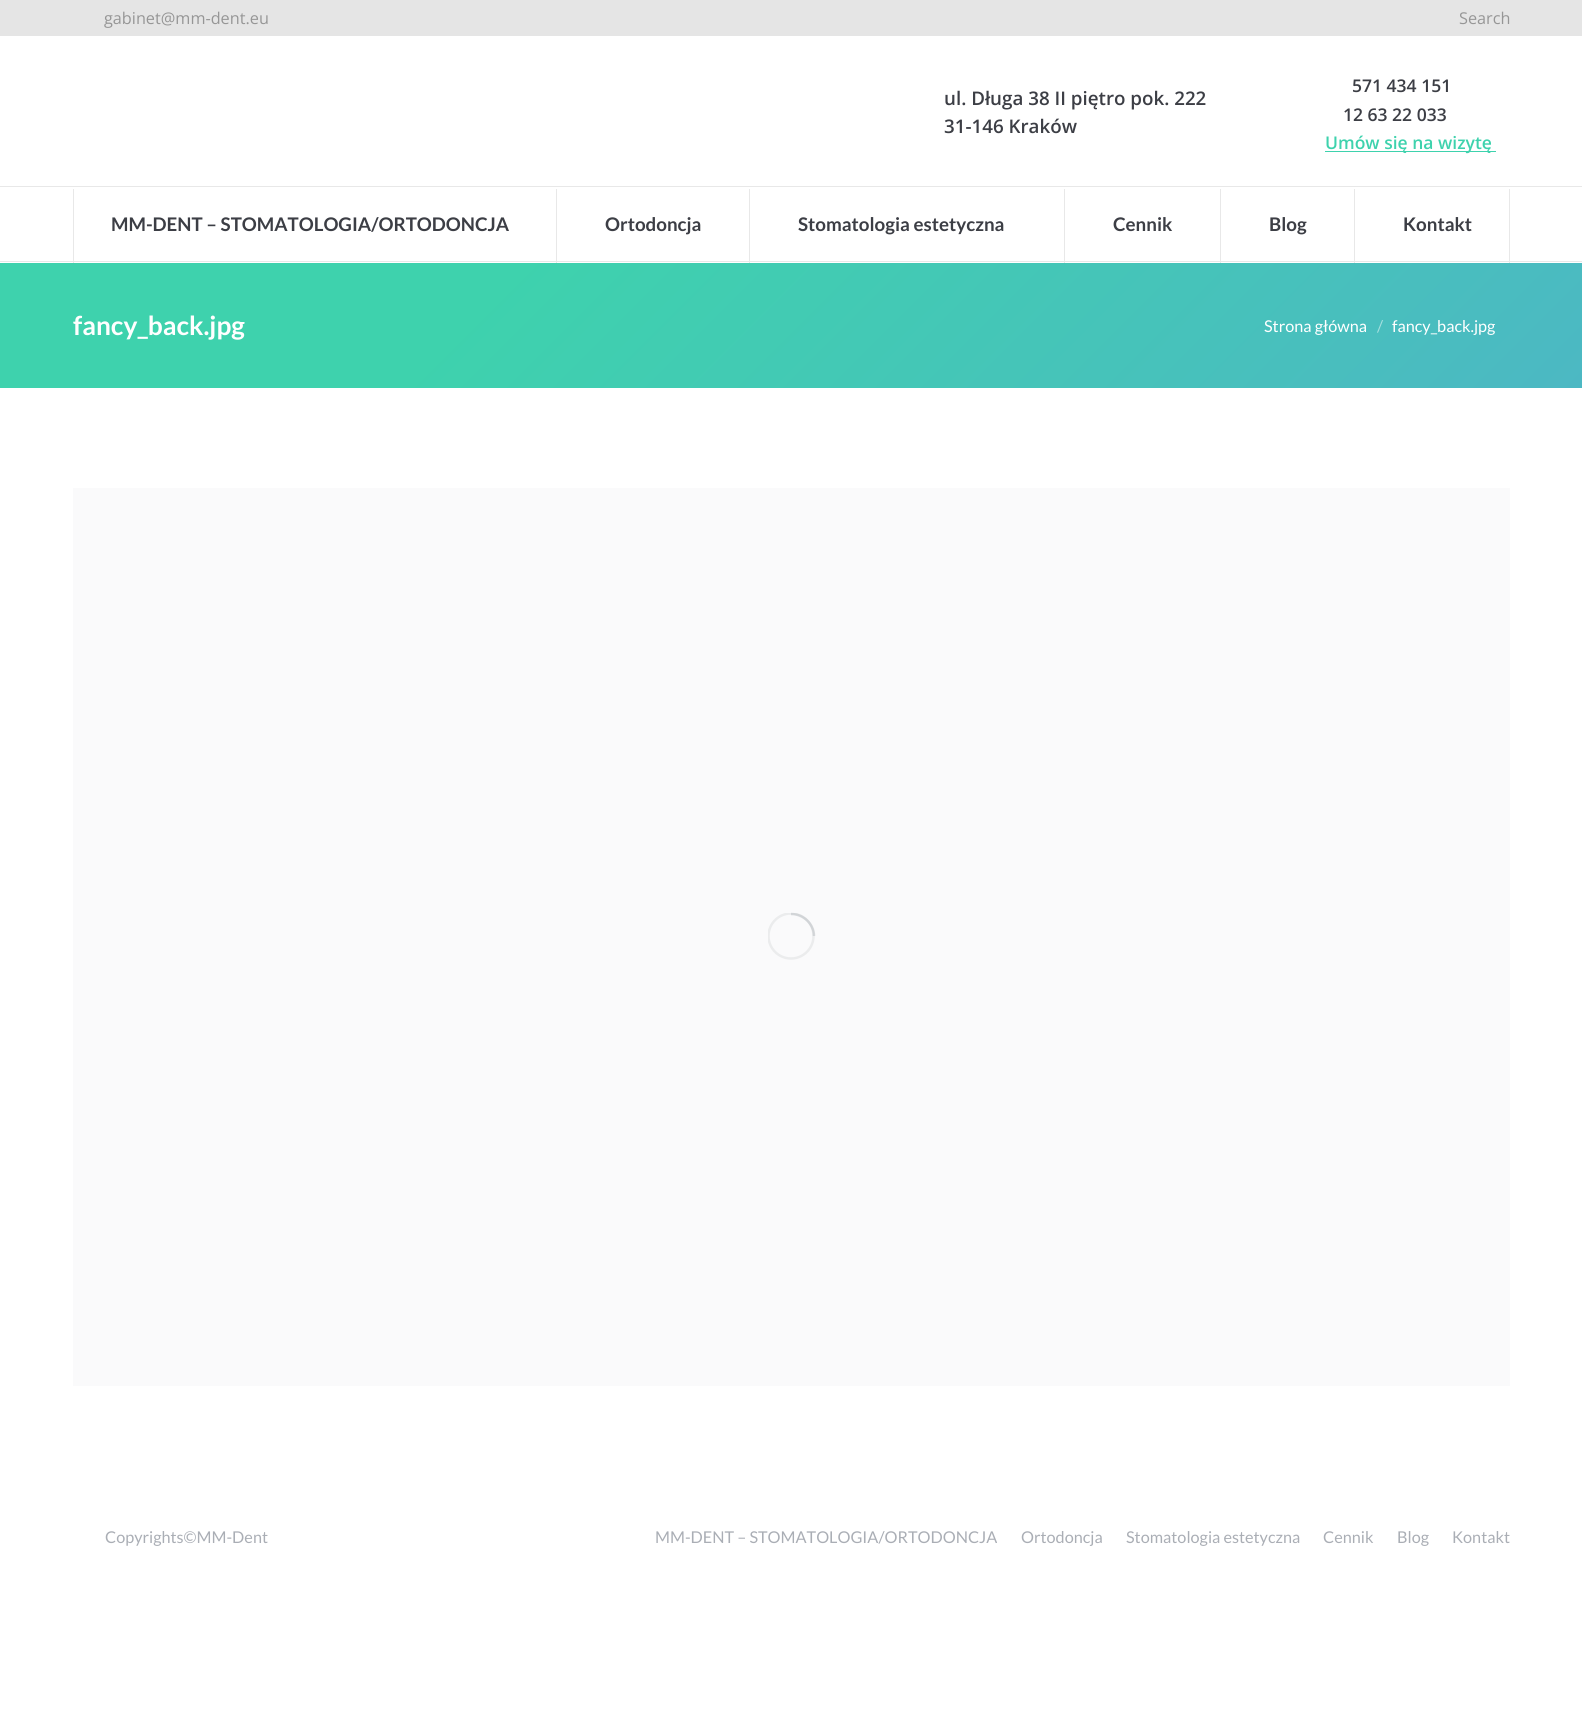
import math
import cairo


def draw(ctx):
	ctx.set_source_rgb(1, 1, 1)
	ctx.paint()
	ctx.set_source_rgb(0.91, 0.91, 0.91)
	ctx.rectangle(0, 261, 1582, 1)
	ctx.fill()
	ctx.set_source_rgb(0.898, 0.898, 0.898)
	ctx.rectangle(0, 0, 1582, 36)
	ctx.fill()
	ctx.select_font_face('Open Sans')
	ctx.set_font_size(16.25)
	ctx.set_source_rgb(0.588, 0.588, 0.588)
	ctx.move_to(104, 24)
	ctx.show_text('gabinet@mm-dent.eu')
	ctx.move_to(1459, 24)
	ctx.show_text('Search')
	ctx.select_font_face('Open Sans SemiBold')
	ctx.set_font_size(18.75)
	ctx.set_source_rgb(0.235, 0.243, 0.271)
	ctx.move_to(944, 105)
	ctx.show_text('ul. Długa 38 II piętro pok. 222')
	ctx.move_to(944, 133)
	ctx.show_text('31-146 Kraków')
	ctx.set_font_size(17.5)
	ctx.move_to(1352, 92)
	ctx.show_text('571 434 151')
	ctx.move_to(1343, 121)
	ctx.show_text('12 63 22 033')
	ctx.set_source_rgb(0.243, 0.824, 0.678)
	ctx.rectangle(1325, 151, 171, 1)
	ctx.fill()
	ctx.move_to(1325, 149)
	ctx.show_text('Umów się na wizytę')
	ctx.set_source_rgb(0.91, 0.91, 0.91)
	ctx.rectangle(0, 186, 1582, 1)
	ctx.fill()
	ctx.rectangle(73, 189, 1, 74)
	ctx.fill()
	ctx.select_font_face('Lato', cairo.FONT_SLANT_NORMAL, cairo.FONT_WEIGHT_BOLD)
	ctx.set_font_size(18.75)
	ctx.set_source_rgb(0.235, 0.243, 0.271)
	ctx.move_to(111, 231)
	ctx.show_text('MM-DENT – STOMATOLOGIA/ORTODONCJA')
	ctx.set_source_rgb(0.91, 0.91, 0.91)
	ctx.rectangle(556, 189, 1, 74)
	ctx.fill()
	ctx.set_source_rgb(0.235, 0.243, 0.271)
	ctx.move_to(605, 231)
	ctx.show_text('Ortodoncja')
	ctx.set_source_rgb(0.91, 0.91, 0.91)
	ctx.rectangle(749, 189, 1, 74)
	ctx.fill()
	ctx.set_source_rgb(0.235, 0.243, 0.271)
	ctx.move_to(798, 231)
	ctx.show_text('Stomatologia estetyczna')
	ctx.set_source_rgb(0.91, 0.91, 0.91)
	ctx.rectangle(1064, 189, 1, 74)
	ctx.fill()
	ctx.set_source_rgb(0.235, 0.243, 0.271)
	ctx.move_to(1113, 231)
	ctx.show_text('Cennik')
	ctx.set_source_rgb(0.91, 0.91, 0.91)
	ctx.rectangle(1220, 189, 1, 74)
	ctx.fill()
	ctx.set_source_rgb(0.235, 0.243, 0.271)
	ctx.move_to(1269, 231)
	ctx.show_text('Blog')
	ctx.set_source_rgb(0.91, 0.91, 0.91)
	ctx.rectangle(1354, 189, 1, 74)
	ctx.fill()
	ctx.set_source_rgb(0.235, 0.243, 0.271)
	ctx.move_to(1403, 231)
	ctx.show_text('Kontakt')
	ctx.set_source_rgb(0.91, 0.91, 0.91)
	ctx.rectangle(1509, 189, 1, 74)
	ctx.fill()
	gradient = cairo.LinearGradient(364, -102, 1218, 752)
	gradient.add_color_stop_rgba(0.3, 0.243, 0.824, 0.678, 1)
	gradient.add_color_stop_rgba(1, 0.298, 0.722, 0.765, 1)
	ctx.set_source(gradient)
	ctx.rectangle(0, 263, 1582, 125)
	ctx.fill()
	ctx.set_font_size(26.25)
	ctx.set_source_rgb(1, 1, 1)
	ctx.move_to(73, 335)
	ctx.show_text('fancy_back.jpg')
	ctx.select_font_face('Lato')
	ctx.set_font_size(16.25)
	ctx.move_to(1264, 332)
	ctx.show_text('Strona główna')
	ctx.set_source_rgb(0.643, 0.875, 0.875)
	ctx.move_to(1377, 332)
	ctx.show_text('/')
	ctx.set_source_rgb(1, 1, 1)
	ctx.move_to(1392, 332)
	ctx.show_text('fancy_back.jpg')
	ctx.set_source_rgb(0.98, 0.98, 0.984)
	ctx.rectangle(73, 488, 1437, 898)
	ctx.fill()
	ctx.save()
	ctx.rectangle(768, 913, 47, 47)
	ctx.clip()
	ctx.arc(791, 936, 22.5, 0, 2 * math.pi)
	ctx.set_source_rgb(0.918, 0.922, 0.929)
	ctx.set_line_width(2.5)
	ctx.stroke()
	ctx.restore()
	ctx.new_path()
	ctx.move_to(814, 936)
	ctx.curve_to(814, 924, 803.5, 914, 791, 914)
	ctx.set_source_rgba(0.529, 0.553, 0.58, 0.25)
	ctx.set_line_width(2.5)
	ctx.stroke()
	ctx.set_source_rgb(0.667, 0.682, 0.71)
	for x, y, s in [
		(105, 1543, 'Copyrights©MM-Dent'),
		(655, 1543, 'MM-DENT – STOMATOLOGIA/ORTODONCJA'),
		(1021, 1543, 'Ortodoncja'),
		(1126, 1543, 'Stomatologia estetyczna'),
		(1323, 1543, 'Cennik'),
		(1397, 1543, 'Blog'),
		(1452, 1543, 'Kontakt'),
	]:
		ctx.move_to(x, y)
		ctx.show_text(s)


surface = cairo.ImageSurface(cairo.FORMAT_RGB24, 1582, 1728)
ctx = cairo.Context(surface)
options = cairo.FontOptions()
options.set_hint_metrics(cairo.HINT_METRICS_OFF)
options.set_hint_style(cairo.HINT_STYLE_NONE)
ctx.set_font_options(options)
ctx.set_miter_limit(4)
draw(ctx)
surface.write_to_png('image.png')
